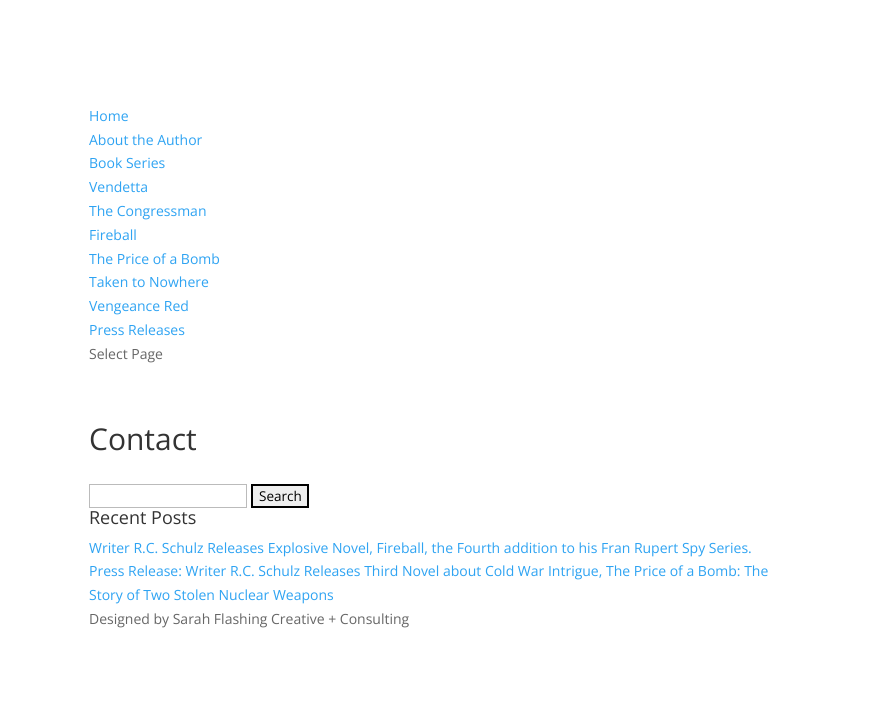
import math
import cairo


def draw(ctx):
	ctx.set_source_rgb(1, 1, 1)
	ctx.paint()
	ctx.select_font_face('Open Sans')
	ctx.set_font_size(14)
	ctx.set_source_rgb(0.18, 0.639, 0.949)
	for x, y, s in [
		(89, 121, 'Home'),
		(89, 145, 'About the Author'),
		(89, 168, 'Book Series'),
		(89, 192, 'Vendetta'),
		(89, 216, 'The Congressman'),
		(89, 240, 'Fireball'),
		(89, 264, 'The Price of a Bomb'),
		(89, 287, 'Taken to Nowhere'),
		(89, 311, 'Vengeance Red'),
		(89, 335, 'Press Releases'),
	]:
		ctx.move_to(x, y)
		ctx.show_text(s)
	ctx.set_source_rgb(0.4, 0.4, 0.4)
	ctx.move_to(89, 359)
	ctx.show_text('Select Page')
	ctx.set_font_size(30)
	ctx.set_source_rgb(0.2, 0.2, 0.2)
	ctx.move_to(89, 450)
	ctx.show_text('Contact')
	ctx.rectangle(89.5, 484.5, 157, 23)
	ctx.set_source_rgb(0.733, 0.733, 0.733)
	ctx.set_line_width(1)
	ctx.stroke()
	ctx.set_source_rgb(0.937, 0.937, 0.937)
	ctx.rectangle(252, 485, 56, 22)
	ctx.fill_preserve()
	ctx.set_source_rgb(0, 0, 0)
	ctx.set_line_width(2)
	ctx.stroke()
	ctx.set_font_size(13.5)
	ctx.move_to(259, 501)
	ctx.show_text('Search')
	ctx.set_font_size(18)
	ctx.set_source_rgb(0.2, 0.2, 0.2)
	ctx.move_to(89, 524)
	ctx.show_text('Recent Posts')
	ctx.set_font_size(14)
	ctx.set_source_rgb(0.18, 0.639, 0.949)
	for x, y, s in [
		(89, 553, 'Writer R.C. Schulz Releases Explosive Novel, Fireball, the Fourth addition to his Fran Rupert Spy Series.'),
		(89, 576, 'Press Release: Writer R.C. Schulz Releases Third Novel about Cold War Intrigue, The Price of a Bomb: The'),
		(89, 600, 'Story of Two Stolen Nuclear Weapons'),
	]:
		ctx.move_to(x, y)
		ctx.show_text(s)
	ctx.set_source_rgb(0.4, 0.4, 0.4)
	ctx.move_to(89, 624)
	ctx.show_text('Designed by Sarah Flashing Creative + Consulting')


surface = cairo.ImageSurface(cairo.FORMAT_RGB24, 892, 724)
ctx = cairo.Context(surface)
options = cairo.FontOptions()
options.set_hint_metrics(cairo.HINT_METRICS_OFF)
options.set_hint_style(cairo.HINT_STYLE_NONE)
ctx.set_font_options(options)
ctx.set_miter_limit(4)
draw(ctx)
surface.write_to_png('image.png')
